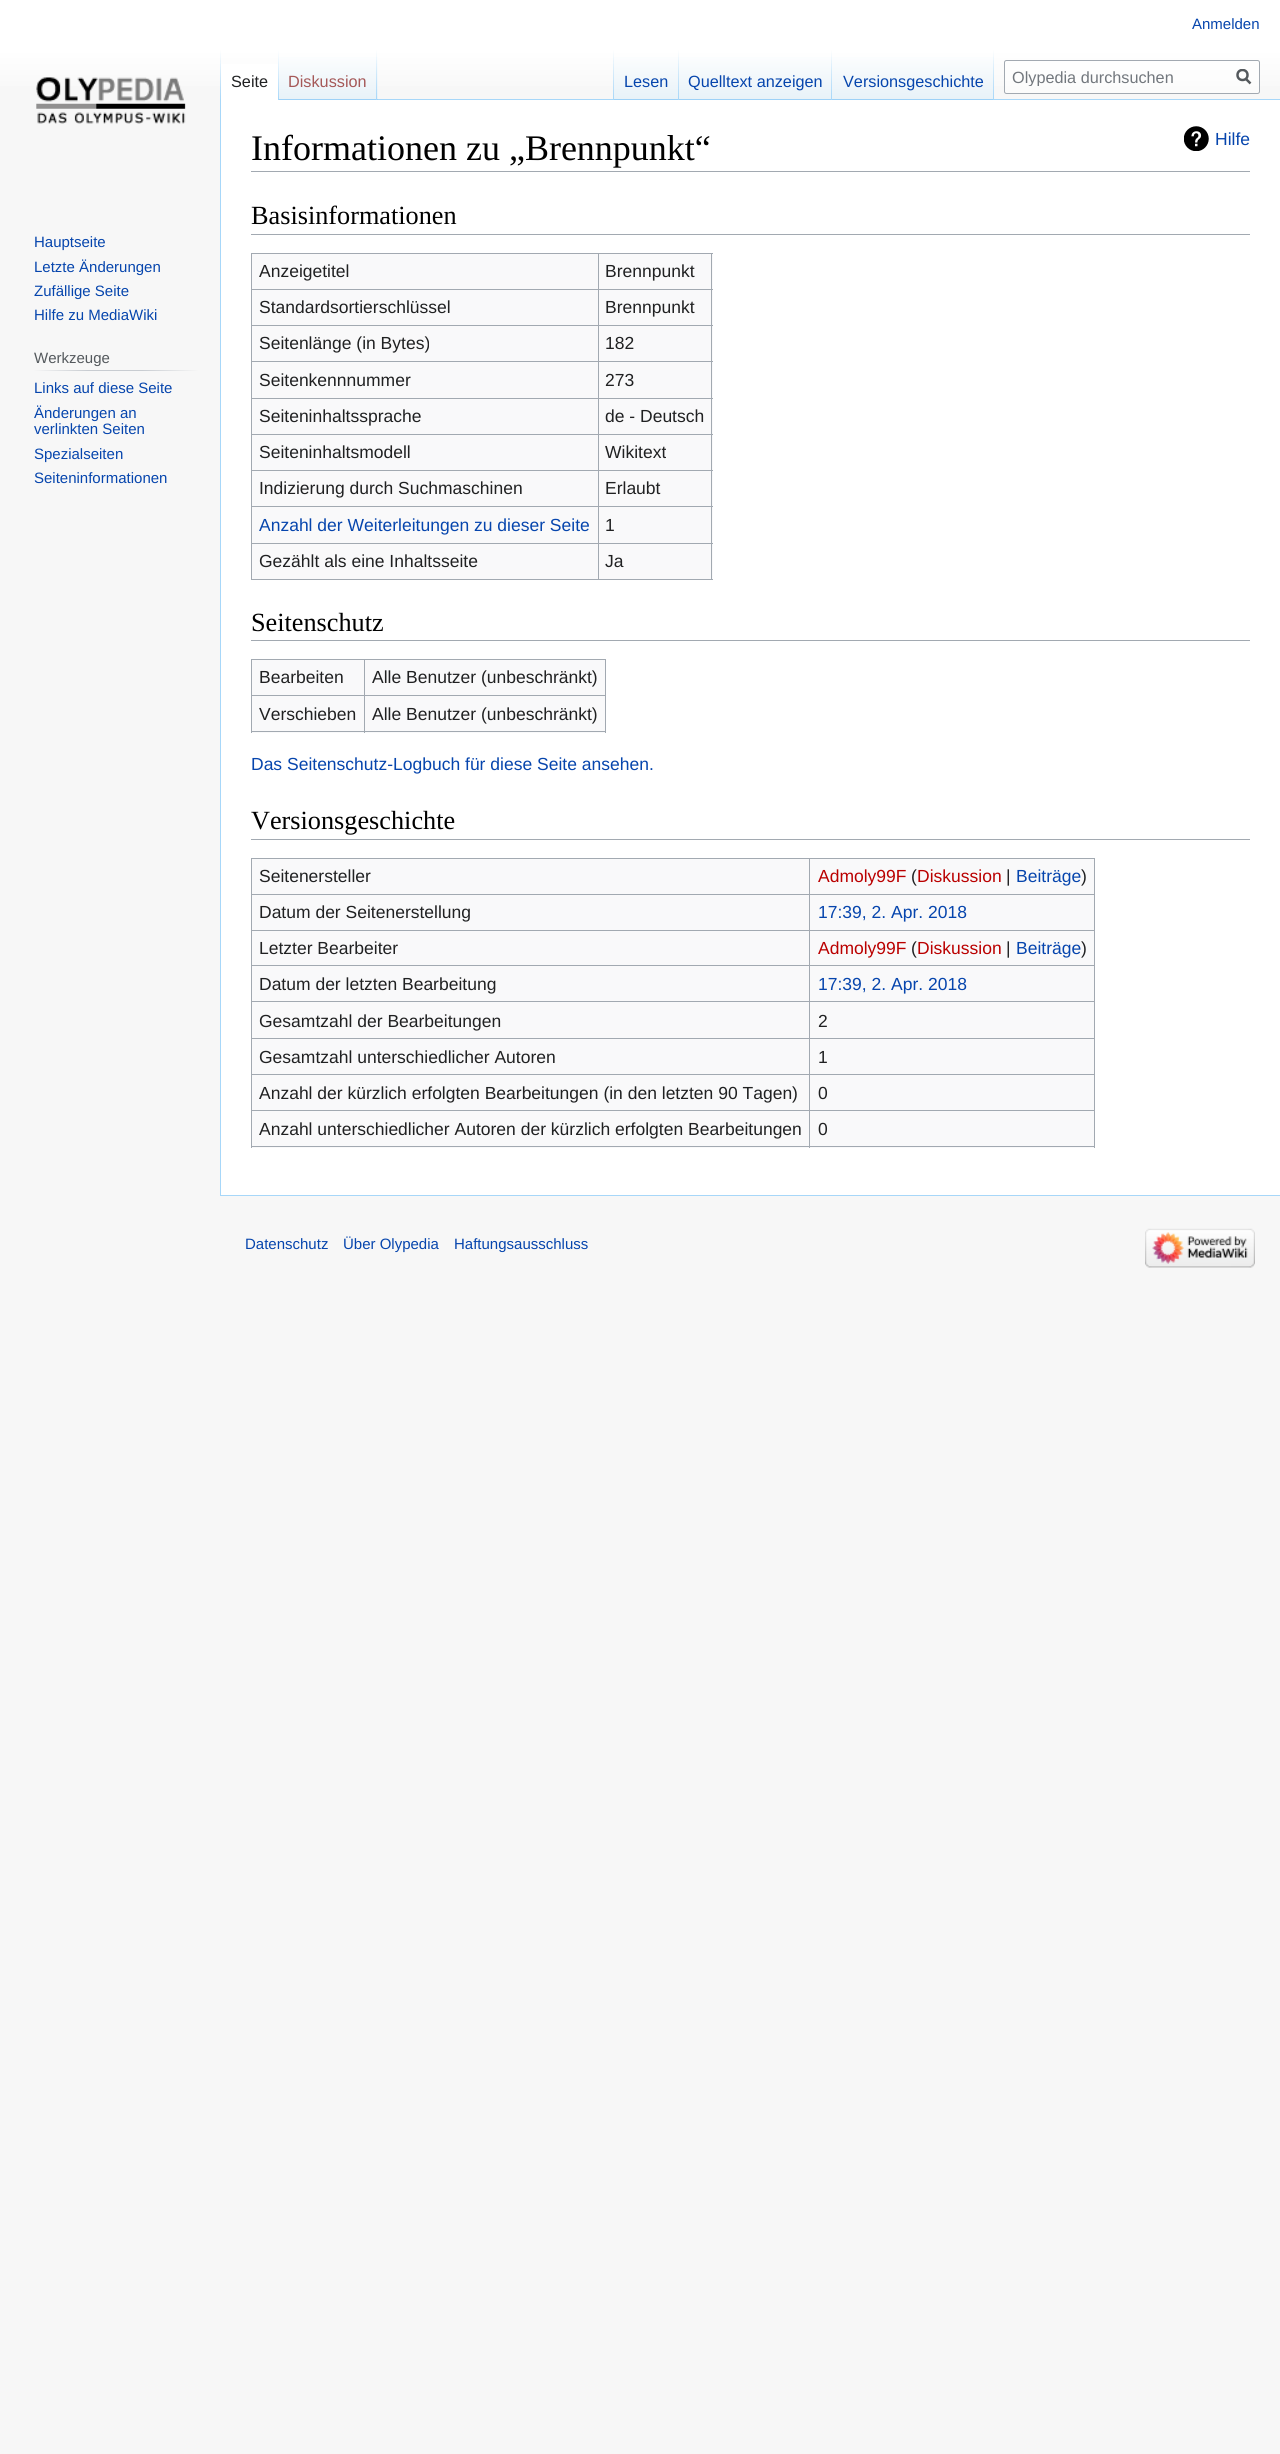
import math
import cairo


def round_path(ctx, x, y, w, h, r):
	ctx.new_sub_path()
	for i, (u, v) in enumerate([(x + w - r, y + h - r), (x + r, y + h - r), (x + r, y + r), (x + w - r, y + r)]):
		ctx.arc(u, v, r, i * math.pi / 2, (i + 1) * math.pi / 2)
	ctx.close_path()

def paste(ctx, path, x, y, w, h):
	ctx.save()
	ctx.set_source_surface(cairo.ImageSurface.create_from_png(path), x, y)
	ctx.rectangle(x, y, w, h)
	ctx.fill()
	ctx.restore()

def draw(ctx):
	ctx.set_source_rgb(0.965, 0.965, 0.965)
	ctx.paint()
	gradient = cairo.LinearGradient(640, 0, 640, 100)
	gradient.add_color_stop_rgba(0.5, 1, 1, 1, 1)
	gradient.add_color_stop_rgba(1, 0.965, 0.965, 0.965, 1)
	ctx.set_source(gradient)
	ctx.rectangle(0, 0, 1280, 86)
	ctx.fill()
	ctx.select_font_face('Liberation Sans')
	ctx.set_font_size(15)
	ctx.set_source_rgb(0.024, 0.271, 0.678)
	ctx.move_to(1192, 29)
	ctx.show_text('Anmelden')
	ctx.set_source_rgb(0.655, 0.843, 0.976)
	ctx.rectangle(220, 1195, 1060, 1)
	ctx.fill()
	ctx.rectangle(220, 99, 1, 1097)
	ctx.fill()
	gradient = cairo.LinearGradient(221, 50, 221, 100)
	gradient.add_color_stop_rgba(0, 0.655, 0.843, 0.976, 0)
	gradient.add_color_stop_rgba(1, 0.655, 0.843, 0.976, 1)
	ctx.set_source(gradient)
	ctx.rectangle(220, 50, 1, 50)
	ctx.fill()
	ctx.set_source_rgb(1, 1, 1)
	ctx.rectangle(221, 64, 57, 36)
	ctx.fill()
	gradient = cairo.LinearGradient(278, 50, 278, 100)
	gradient.add_color_stop_rgba(0, 1, 1, 1, 1)
	gradient.add_color_stop_rgba(1, 0.655, 0.843, 0.976, 1)
	ctx.set_source(gradient)
	ctx.rectangle(278, 50, 1, 50)
	ctx.fill()
	ctx.set_font_size(16.25)
	ctx.set_source_rgb(0.125, 0.129, 0.133)
	ctx.move_to(231, 87)
	ctx.show_text('Seite')
	gradient = cairo.LinearGradient(328, 100, 328, 50)
	gradient.add_color_stop_rgba(0, 0.467, 0.757, 0.965, 1)
	gradient.add_color_stop_rgba(0.03, 0.91, 0.949, 0.973, 1)
	gradient.add_color_stop_rgba(1, 1, 1, 1, 1)
	ctx.set_source(gradient)
	ctx.rectangle(279, 57, 99, 43)
	ctx.fill()
	gradient = cairo.LinearGradient(377, 50, 377, 100)
	gradient.add_color_stop_rgba(0, 0.655, 0.843, 0.976, 0)
	gradient.add_color_stop_rgba(1, 0.655, 0.843, 0.976, 1)
	ctx.set_source(gradient)
	ctx.rectangle(376, 50, 1, 50)
	ctx.fill()
	ctx.set_source_rgb(0.647, 0.345, 0.345)
	ctx.move_to(288, 87)
	ctx.show_text('Diskussion')
	ctx.set_source_rgb(0.655, 0.843, 0.976)
	ctx.rectangle(378, 99, 902, 1)
	ctx.fill()
	gradient = cairo.LinearGradient(613, 50, 613, 100)
	gradient.add_color_stop_rgba(0, 0.655, 0.843, 0.976, 0)
	gradient.add_color_stop_rgba(1, 0.655, 0.843, 0.976, 1)
	ctx.set_source(gradient)
	ctx.rectangle(613, 50, 1, 50)
	ctx.fill()
	gradient = cairo.LinearGradient(646, 100, 646, 50)
	gradient.add_color_stop_rgba(0, 0.467, 0.757, 0.965, 1)
	gradient.add_color_stop_rgba(0.03, 0.91, 0.949, 0.973, 1)
	gradient.add_color_stop_rgba(1, 1, 1, 1, 1)
	ctx.set_source(gradient)
	ctx.rectangle(614, 57, 65, 43)
	ctx.fill()
	gradient = cairo.LinearGradient(678, 50, 678, 100)
	gradient.add_color_stop_rgba(0, 0.655, 0.843, 0.976, 0)
	gradient.add_color_stop_rgba(1, 0.655, 0.843, 0.976, 1)
	ctx.set_source(gradient)
	ctx.rectangle(678, 50, 1, 50)
	ctx.fill()
	ctx.set_source_rgb(0.024, 0.271, 0.678)
	ctx.move_to(624, 87)
	ctx.show_text('Lesen')
	gradient = cairo.LinearGradient(756, 100, 756, 50)
	gradient.add_color_stop_rgba(0, 0.467, 0.757, 0.965, 1)
	gradient.add_color_stop_rgba(0.03, 0.91, 0.949, 0.973, 1)
	gradient.add_color_stop_rgba(1, 1, 1, 1, 1)
	ctx.set_source(gradient)
	ctx.rectangle(679, 57, 154, 43)
	ctx.fill()
	gradient = cairo.LinearGradient(832, 50, 832, 100)
	gradient.add_color_stop_rgba(0, 0.655, 0.843, 0.976, 0)
	gradient.add_color_stop_rgba(1, 0.655, 0.843, 0.976, 1)
	ctx.set_source(gradient)
	ctx.rectangle(831, 50, 1, 50)
	ctx.fill()
	ctx.set_source_rgb(0.024, 0.271, 0.678)
	ctx.move_to(688, 87)
	ctx.show_text('Quelltext anzeigen')
	gradient = cairo.LinearGradient(913, 100, 913, 50)
	gradient.add_color_stop_rgba(0, 0.467, 0.757, 0.965, 1)
	gradient.add_color_stop_rgba(0.03, 0.91, 0.949, 0.973, 1)
	gradient.add_color_stop_rgba(1, 1, 1, 1, 1)
	ctx.set_source(gradient)
	ctx.rectangle(833, 57, 161, 43)
	ctx.fill()
	gradient = cairo.LinearGradient(993, 50, 993, 100)
	gradient.add_color_stop_rgba(0, 0.655, 0.843, 0.976, 0)
	gradient.add_color_stop_rgba(1, 0.655, 0.843, 0.976, 1)
	ctx.set_source(gradient)
	ctx.rectangle(993, 50, 1, 50)
	ctx.fill()
	ctx.set_source_rgb(0.024, 0.271, 0.678)
	ctx.move_to(843, 87)
	ctx.show_text('Versionsgeschichte')
	ctx.set_source_rgba(1, 1, 1, 0.5)
	round_path(ctx, 1004.5, 60.5, 255, 33, 2)
	ctx.fill_preserve()
	ctx.set_source_rgb(0.635, 0.663, 0.694)
	ctx.set_line_width(1)
	ctx.stroke()
	ctx.save()
	ctx.rectangle(1011, 68, 218, 18)
	ctx.clip()
	ctx.set_source_rgb(0.447, 0.467, 0.49)
	ctx.move_to(1012, 83)
	ctx.show_text('Olypedia durchsuchen')
	ctx.restore()
	ctx.new_path()
	ctx.move_to(1250.5, 83.5)
	ctx.line_to(1245.5, 78.5)
	ctx.set_source_rgb(0.329, 0.349, 0.365)
	ctx.set_line_width(2.5)
	ctx.stroke()
	ctx.save()
	ctx.rectangle(1236, 69, 15, 16)
	ctx.clip()
	ctx.arc(1242.5, 75, 5, 0, 2 * math.pi)
	ctx.stroke()
	ctx.restore()
	paste(ctx, 'media/1.png', 36, 77, 150, 47)
	ctx.set_font_size(15)
	ctx.set_source_rgb(0.024, 0.271, 0.678)
	for x, y, s in [
		(34, 247, 'Hauptseite'),
		(34, 272, 'Letzte Änderungen'),
		(34, 296, 'Zufällige Seite'),
		(34, 320, 'Hilfe zu MediaWiki'),
	]:
		ctx.move_to(x, y)
		ctx.show_text(s)
	gradient = cairo.LinearGradient(34, 371, 198, 371)
	gradient.add_color_stop_rgba(0, 0.965, 0.965, 0.965, 1)
	gradient.add_color_stop_rgba(0.33, 0.784, 0.8, 0.82, 1)
	gradient.add_color_stop_rgba(0.66, 0.784, 0.8, 0.82, 1)
	gradient.add_color_stop_rgba(1, 0.965, 0.965, 0.965, 1)
	ctx.set_source(gradient)
	ctx.rectangle(34, 370, 164, 1)
	ctx.fill()
	ctx.set_source_rgb(0.329, 0.349, 0.365)
	ctx.move_to(34, 363)
	ctx.show_text('Werkzeuge')
	ctx.set_source_rgb(0.024, 0.271, 0.678)
	for x, y, s in [
		(34, 393, 'Links auf diese Seite'),
		(34, 418, 'Änderungen an'),
		(34, 434, 'verlinkten Seiten'),
		(34, 459, 'Spezialseiten'),
		(34, 483, 'Seiteninformationen'),
	]:
		ctx.move_to(x, y)
		ctx.show_text(s)
	ctx.set_source_rgb(1, 1, 1)
	ctx.rectangle(221, 100, 1059, 1095)
	ctx.fill()
	ctx.set_source_rgb(0.635, 0.663, 0.694)
	ctx.rectangle(251, 171, 999, 1)
	ctx.fill()
	ctx.select_font_face('Liberation Serif')
	ctx.set_font_size(36)
	ctx.set_source_rgb(0, 0, 0)
	ctx.move_to(251, 160)
	ctx.show_text('Informationen zu „Brennpunkt“')
	paste(ctx, 'media/2.png', 1184, 126, 25, 25)
	ctx.select_font_face('Liberation Sans')
	ctx.set_font_size(17.5)
	ctx.set_source_rgb(0.024, 0.271, 0.678)
	ctx.move_to(1215, 145)
	ctx.show_text('Hilfe')
	ctx.set_source_rgb(0.635, 0.663, 0.694)
	ctx.rectangle(251, 234, 999, 1)
	ctx.fill()
	ctx.select_font_face('Liberation Serif')
	ctx.set_font_size(26.25)
	ctx.set_source_rgb(0, 0, 0)
	ctx.move_to(251, 224)
	ctx.show_text('Basisinformationen')
	ctx.set_source_rgb(0.973, 0.976, 0.98)
	ctx.rectangle(252, 254, 461, 325)
	ctx.fill()
	ctx.set_source_rgb(0.635, 0.663, 0.694)
	ctx.rectangle(251, 253, 462, 1)
	ctx.rectangle(711, 253, 1, 327)
	ctx.rectangle(251, 579, 462, 1)
	ctx.rectangle(251, 253, 1, 327)
	ctx.fill()
	ctx.select_font_face('Liberation Sans')
	ctx.set_font_size(17.5)
	ctx.set_source_rgb(0.125, 0.129, 0.133)
	ctx.move_to(259, 277)
	ctx.show_text('Anzeigetitel')
	ctx.set_source_rgb(0.635, 0.663, 0.694)
	ctx.rectangle(598, 289, 115, 1)
	ctx.rectangle(598, 325, 115, 1)
	ctx.rectangle(598, 361, 115, 1)
	ctx.rectangle(598, 398, 115, 1)
	ctx.rectangle(598, 434, 115, 1)
	ctx.rectangle(598, 470, 115, 1)
	ctx.rectangle(598, 506, 115, 1)
	ctx.rectangle(598, 543, 115, 1)
	ctx.rectangle(598, 543, 1, 37)
	ctx.rectangle(251, 543, 348, 1)
	ctx.rectangle(598, 506, 1, 38)
	ctx.rectangle(251, 506, 348, 1)
	ctx.rectangle(598, 470, 1, 38)
	ctx.rectangle(251, 470, 348, 1)
	ctx.rectangle(598, 434, 1, 37)
	ctx.rectangle(251, 434, 348, 1)
	ctx.rectangle(598, 398, 1, 37)
	ctx.rectangle(251, 398, 348, 1)
	ctx.rectangle(598, 361, 1, 38)
	ctx.rectangle(251, 361, 348, 1)
	ctx.rectangle(598, 325, 1, 38)
	ctx.rectangle(251, 325, 348, 1)
	ctx.rectangle(598, 289, 1, 37)
	ctx.rectangle(251, 289, 348, 1)
	ctx.rectangle(598, 253, 1, 37)
	ctx.fill()
	ctx.set_source_rgb(0.125, 0.129, 0.133)
	for x, y, s in [
		(605, 277, 'Brennpunkt'),
		(259, 313, 'Standardsortierschlüssel'),
		(605, 313, 'Brennpunkt'),
		(259, 349, 'Seitenlänge (in Bytes)'),
		(605, 349, '182'),
		(259, 386, 'Seitenkennnummer'),
		(605, 386, '273'),
		(259, 422, 'Seiteninhaltssprache'),
		(605, 422, 'de - Deutsch'),
		(259, 458, 'Seiteninhaltsmodell'),
		(605, 458, 'Wikitext'),
		(259, 494, 'Indizierung durch Suchmaschinen'),
		(605, 494, 'Erlaubt'),
	]:
		ctx.move_to(x, y)
		ctx.show_text(s)
	ctx.set_source_rgb(0.024, 0.271, 0.678)
	ctx.move_to(259, 531)
	ctx.show_text('Anzahl der Weiterleitungen zu dieser Seite')
	ctx.set_source_rgb(0.125, 0.129, 0.133)
	for x, y, s in [
		(605, 531, '1'),
		(259, 567, 'Gezählt als eine Inhaltsseite'),
		(605, 567, 'Ja'),
	]:
		ctx.move_to(x, y)
		ctx.show_text(s)
	ctx.set_source_rgb(0.635, 0.663, 0.694)
	ctx.rectangle(251, 640, 999, 1)
	ctx.fill()
	ctx.select_font_face('Liberation Serif')
	ctx.set_font_size(26.25)
	ctx.set_source_rgb(0, 0, 0)
	ctx.move_to(251, 631)
	ctx.show_text('Seitenschutz')
	ctx.set_source_rgb(0.973, 0.976, 0.98)
	ctx.rectangle(252, 660, 353, 73)
	ctx.fill()
	ctx.set_source_rgb(0.635, 0.663, 0.694)
	ctx.rectangle(251, 659, 355, 1)
	ctx.rectangle(605, 659, 1, 74)
	ctx.rectangle(251, 731, 355, 1)
	ctx.rectangle(251, 659, 1, 74)
	ctx.fill()
	ctx.select_font_face('Liberation Sans')
	ctx.set_font_size(17.5)
	ctx.set_source_rgb(0.125, 0.129, 0.133)
	ctx.move_to(259, 683)
	ctx.show_text('Bearbeiten')
	ctx.set_source_rgb(0.635, 0.663, 0.694)
	ctx.rectangle(364, 695, 242, 1)
	ctx.rectangle(364, 695, 1, 38)
	ctx.rectangle(251, 695, 114, 1)
	ctx.rectangle(364, 659, 1, 37)
	ctx.fill()
	ctx.set_source_rgb(0.125, 0.129, 0.133)
	for x, y, s in [
		(372, 683, 'Alle Benutzer (unbeschränkt)'),
		(259, 720, 'Verschieben'),
		(372, 720, 'Alle Benutzer (unbeschränkt)'),
	]:
		ctx.move_to(x, y)
		ctx.show_text(s)
	ctx.set_source_rgb(0.024, 0.271, 0.678)
	ctx.move_to(251, 770)
	ctx.show_text('Das Seitenschutz-Logbuch für diese Seite ansehen.')
	ctx.set_source_rgb(0.635, 0.663, 0.694)
	ctx.rectangle(251, 839, 999, 1)
	ctx.fill()
	ctx.select_font_face('Liberation Serif')
	ctx.set_font_size(26.25)
	ctx.set_source_rgb(0, 0, 0)
	ctx.move_to(251, 829)
	ctx.show_text('Versionsgeschichte')
	ctx.set_source_rgb(0.973, 0.976, 0.98)
	ctx.rectangle(252, 859, 842, 289)
	ctx.fill()
	ctx.set_source_rgb(0.635, 0.663, 0.694)
	ctx.rectangle(251, 858, 844, 1)
	ctx.rectangle(1094, 858, 1, 290)
	ctx.rectangle(251, 1146, 844, 1)
	ctx.rectangle(251, 858, 1, 290)
	ctx.fill()
	ctx.select_font_face('Liberation Sans')
	ctx.set_font_size(17.5)
	ctx.set_source_rgb(0.125, 0.129, 0.133)
	ctx.move_to(259, 882)
	ctx.show_text('Seitenersteller')
	ctx.set_source_rgb(0.635, 0.663, 0.694)
	ctx.rectangle(809, 894, 286, 1)
	ctx.rectangle(809, 930, 286, 1)
	ctx.rectangle(809, 965, 286, 1)
	ctx.rectangle(809, 1001, 286, 1)
	ctx.rectangle(809, 1038, 286, 1)
	ctx.rectangle(809, 1074, 286, 1)
	ctx.rectangle(809, 1110, 286, 1)
	ctx.rectangle(809, 1110, 1, 38)
	ctx.rectangle(251, 1110, 559, 1)
	ctx.rectangle(809, 1074, 1, 37)
	ctx.rectangle(251, 1074, 559, 1)
	ctx.rectangle(809, 1038, 1, 37)
	ctx.rectangle(251, 1038, 559, 1)
	ctx.rectangle(809, 1001, 1, 38)
	ctx.rectangle(251, 1001, 559, 1)
	ctx.rectangle(809, 965, 1, 38)
	ctx.rectangle(251, 965, 559, 1)
	ctx.rectangle(809, 930, 1, 36)
	ctx.rectangle(251, 930, 559, 1)
	ctx.rectangle(809, 894, 1, 37)
	ctx.rectangle(251, 894, 559, 1)
	ctx.rectangle(809, 858, 1, 37)
	ctx.fill()
	ctx.set_source_rgb(0.729, 0, 0)
	ctx.move_to(818, 882)
	ctx.show_text('Admoly99F')
	ctx.set_source_rgb(0.125, 0.129, 0.133)
	ctx.move_to(911, 882)
	ctx.show_text('(')
	ctx.set_source_rgb(0.729, 0, 0)
	ctx.move_to(917, 882)
	ctx.show_text('Diskussion')
	ctx.set_source_rgb(0.125, 0.129, 0.133)
	ctx.move_to(1006, 882)
	ctx.show_text('|')
	ctx.set_source_rgb(0.024, 0.271, 0.678)
	ctx.move_to(1016, 882)
	ctx.show_text('Beiträge')
	ctx.set_source_rgb(0.125, 0.129, 0.133)
	ctx.move_to(1081, 882)
	ctx.show_text(')')
	ctx.move_to(259, 918)
	ctx.show_text('Datum der Seitenerstellung')
	ctx.set_source_rgb(0.024, 0.271, 0.678)
	ctx.move_to(818, 918)
	ctx.show_text('17:39, 2. Apr. 2018')
	ctx.set_source_rgb(0.125, 0.129, 0.133)
	ctx.move_to(259, 954)
	ctx.show_text('Letzter Bearbeiter')
	ctx.set_source_rgb(0.729, 0, 0)
	ctx.move_to(818, 954)
	ctx.show_text('Admoly99F')
	ctx.set_source_rgb(0.125, 0.129, 0.133)
	ctx.move_to(911, 954)
	ctx.show_text('(')
	ctx.set_source_rgb(0.729, 0, 0)
	ctx.move_to(917, 954)
	ctx.show_text('Diskussion')
	ctx.set_source_rgb(0.125, 0.129, 0.133)
	ctx.move_to(1006, 954)
	ctx.show_text('|')
	ctx.set_source_rgb(0.024, 0.271, 0.678)
	ctx.move_to(1016, 954)
	ctx.show_text('Beiträge')
	ctx.set_source_rgb(0.125, 0.129, 0.133)
	ctx.move_to(1081, 954)
	ctx.show_text(')')
	ctx.move_to(259, 990)
	ctx.show_text('Datum der letzten Bearbeitung')
	ctx.set_source_rgb(0.024, 0.271, 0.678)
	ctx.move_to(818, 990)
	ctx.show_text('17:39, 2. Apr. 2018')
	ctx.set_source_rgb(0.125, 0.129, 0.133)
	for x, y, s in [
		(259, 1027, 'Gesamtzahl der Bearbeitungen'),
		(818, 1027, '2'),
		(259, 1063, 'Gesamtzahl unterschiedlicher Autoren'),
		(818, 1063, '1'),
		(259, 1099, 'Anzahl der kürzlich erfolgten Bearbeitungen (in den letzten 90 Tagen)'),
		(818, 1099, '0'),
		(259, 1135, 'Anzahl unterschiedlicher Autoren der kürzlich erfolgten Bearbeitungen'),
		(818, 1135, '0'),
	]:
		ctx.move_to(x, y)
		ctx.show_text(s)
	ctx.set_font_size(15)
	ctx.set_source_rgb(0.024, 0.271, 0.678)
	for x, y, s in [
		(245, 1249, 'Datenschutz'),
		(343, 1249, 'Über Olypedia'),
		(454, 1249, 'Haftungsausschluss'),
	]:
		ctx.move_to(x, y)
		ctx.show_text(s)
	paste(ctx, 'media/3.png', 1145, 1228, 110, 40)


surface = cairo.ImageSurface(cairo.FORMAT_RGB24, 1280, 2454)
ctx = cairo.Context(surface)
options = cairo.FontOptions()
options.set_hint_metrics(cairo.HINT_METRICS_OFF)
options.set_hint_style(cairo.HINT_STYLE_NONE)
ctx.set_font_options(options)
ctx.set_miter_limit(4)
draw(ctx)
surface.write_to_png('image.png')
